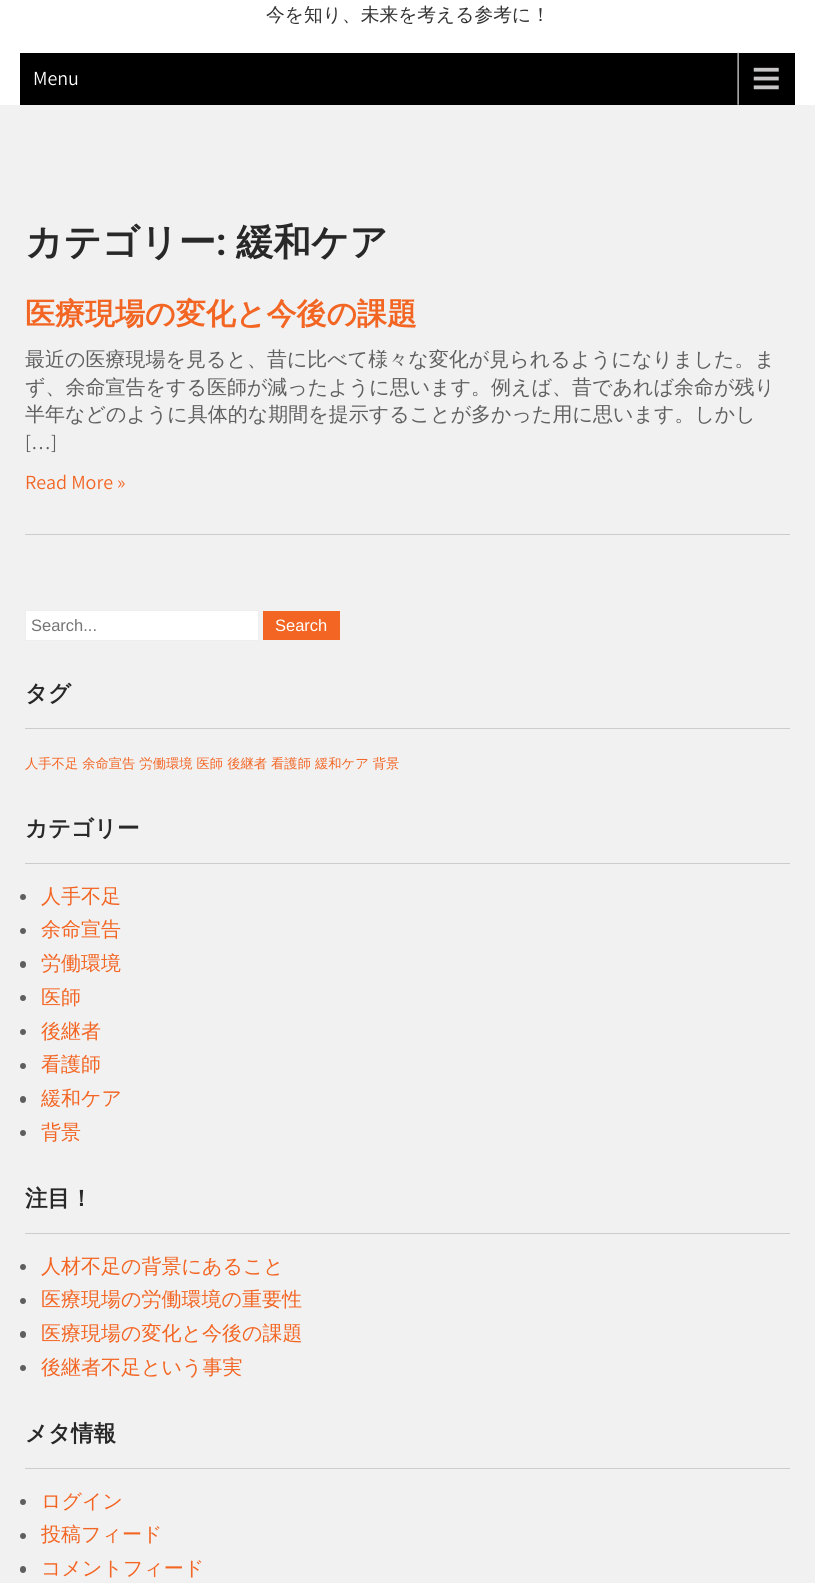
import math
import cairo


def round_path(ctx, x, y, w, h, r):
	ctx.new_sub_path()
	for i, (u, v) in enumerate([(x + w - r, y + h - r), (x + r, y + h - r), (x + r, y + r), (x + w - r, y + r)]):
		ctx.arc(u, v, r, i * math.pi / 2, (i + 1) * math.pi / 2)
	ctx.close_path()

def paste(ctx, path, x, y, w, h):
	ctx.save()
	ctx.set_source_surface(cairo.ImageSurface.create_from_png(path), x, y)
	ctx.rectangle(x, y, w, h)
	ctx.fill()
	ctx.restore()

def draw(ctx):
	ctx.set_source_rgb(0.945, 0.945, 0.945)
	ctx.paint()
	ctx.set_source_rgb(1, 1, 1)
	ctx.rectangle(0, 0, 815, 105)
	ctx.fill()
	ctx.select_font_face('WenQuanYi Zen Hei Medium')
	ctx.set_font_size(18.75)
	ctx.set_source_rgb(0.196, 0.196, 0.196)
	ctx.move_to(266, 21)
	ctx.show_text('今を知り、未来を考える参考に！')
	ctx.set_source_rgb(0, 0, 0)
	ctx.rectangle(20, 53, 775, 52)
	ctx.fill()
	paste(ctx, 'media/1.png', 737, 52, 42, 53)
	ctx.select_font_face('Assistant')
	ctx.set_font_size(20)
	ctx.set_source_rgb(1, 1, 1)
	ctx.move_to(33, 85)
	ctx.show_text('Menu')
	ctx.select_font_face('WenQuanYi Zen Hei', cairo.FONT_SLANT_NORMAL, cairo.FONT_WEIGHT_BOLD)
	ctx.set_font_size(37.5)
	ctx.set_source_rgb(0.157, 0.157, 0.157)
	ctx.move_to(25, 255)
	ctx.show_text('カテゴリー')
	ctx.select_font_face('Roboto', cairo.FONT_SLANT_NORMAL, cairo.FONT_WEIGHT_BOLD)
	ctx.move_to(216, 255)
	ctx.show_text(':')
	ctx.select_font_face('WenQuanYi Zen Hei', cairo.FONT_SLANT_NORMAL, cairo.FONT_WEIGHT_BOLD)
	ctx.move_to(236, 255)
	ctx.show_text('緩和ケア')
	ctx.set_source_rgb(0.8, 0.8, 0.8)
	ctx.rectangle(25, 534, 765, 1)
	ctx.fill()
	ctx.set_font_size(30)
	ctx.set_source_rgb(0.953, 0.396, 0.137)
	ctx.move_to(25, 324)
	ctx.show_text('医療現場の変化と今後の課題')
	ctx.select_font_face('WenQuanYi Zen Hei Medium')
	ctx.set_font_size(20)
	ctx.set_source_rgb(0.373, 0.373, 0.373)
	for x, y, s in [
		(25, 366, '最近の医療現場を見ると、昔に比べて様々な変化が見られるようになりました。ま'),
		(25, 394, 'ず、余命宣告をする医師が減ったように思います。例えば、昔であれば余命が残り'),
		(25, 421, '半年などのように具体的な期間を提示することが多かった用に思います。しかし'),
	]:
		ctx.move_to(x, y)
		ctx.show_text(s)
	ctx.select_font_face('Assistant')
	ctx.move_to(25, 449)
	ctx.show_text('[…]')
	ctx.set_source_rgb(0.953, 0.396, 0.137)
	ctx.move_to(25, 489)
	ctx.show_text('Read More »')
	ctx.set_source_rgb(1, 1, 1)
	ctx.rectangle(25.5, 610.5, 233, 30)
	ctx.fill_preserve()
	ctx.set_source_rgb(0.933, 0.933, 0.933)
	ctx.set_line_width(1)
	ctx.stroke()
	ctx.select_font_face('Liberation Sans')
	ctx.set_font_size(16.5)
	ctx.set_source_rgb(0.459, 0.459, 0.459)
	ctx.move_to(31, 631)
	ctx.show_text('Search...')
	ctx.set_source_rgb(0.953, 0.396, 0.137)
	ctx.rectangle(263, 611, 77, 29)
	ctx.fill()
	ctx.set_source_rgb(1, 1, 1)
	ctx.move_to(275, 631)
	ctx.show_text('Search')
	ctx.set_source_rgb(0.8, 0.8, 0.8)
	ctx.rectangle(25, 728, 765, 1)
	ctx.fill()
	ctx.select_font_face('WenQuanYi Zen Hei', cairo.FONT_SLANT_NORMAL, cairo.FONT_WEIGHT_BOLD)
	ctx.set_font_size(22.5)
	ctx.set_source_rgb(0.157, 0.157, 0.157)
	ctx.move_to(25, 701)
	ctx.show_text('タグ')
	ctx.select_font_face('WenQuanYi Zen Hei Medium')
	ctx.set_font_size(13.3)
	ctx.set_source_rgb(0.953, 0.396, 0.137)
	ctx.move_to(25, 768)
	ctx.show_text('人手不足 余命宣告 労働環境 医師 後継者 看護師 緩和ケア 背景')
	ctx.set_source_rgb(0.8, 0.8, 0.8)
	ctx.rectangle(25, 863, 765, 1)
	ctx.fill()
	ctx.select_font_face('WenQuanYi Zen Hei', cairo.FONT_SLANT_NORMAL, cairo.FONT_WEIGHT_BOLD)
	ctx.set_font_size(22.5)
	ctx.set_source_rgb(0.157, 0.157, 0.157)
	ctx.move_to(25, 836)
	ctx.show_text('カテゴリー')
	ctx.set_source_rgb(0.373, 0.373, 0.373)
	ctx.new_path()
	ctx.arc(23, 897, 3, 0, 2 * math.pi)
	ctx.fill()
	ctx.select_font_face('WenQuanYi Zen Hei Medium')
	ctx.set_font_size(20)
	ctx.set_source_rgb(0.953, 0.396, 0.137)
	ctx.move_to(41, 903)
	ctx.show_text('人手不足')
	ctx.set_source_rgb(0.373, 0.373, 0.373)
	ctx.new_path()
	ctx.arc(23, 931, 3, 0, 2 * math.pi)
	ctx.fill()
	ctx.set_source_rgb(0.953, 0.396, 0.137)
	ctx.move_to(41, 936)
	ctx.show_text('余命宣告')
	ctx.set_source_rgb(0.373, 0.373, 0.373)
	round_path(ctx, 20, 961, 6, 7, 3)
	ctx.fill()
	ctx.set_source_rgb(0.953, 0.396, 0.137)
	ctx.move_to(41, 970)
	ctx.show_text('労働環境')
	ctx.set_source_rgb(0.373, 0.373, 0.373)
	ctx.new_path()
	ctx.arc(23, 998, 3, 0, 2 * math.pi)
	ctx.fill()
	ctx.set_source_rgb(0.953, 0.396, 0.137)
	ctx.move_to(41, 1004)
	ctx.show_text('医師')
	ctx.set_source_rgb(0.373, 0.373, 0.373)
	ctx.new_path()
	ctx.arc(23, 1032, 3, 0, 2 * math.pi)
	ctx.fill()
	ctx.set_source_rgb(0.953, 0.396, 0.137)
	ctx.move_to(41, 1038)
	ctx.show_text('後継者')
	ctx.set_source_rgb(0.373, 0.373, 0.373)
	ctx.new_path()
	ctx.arc(23, 1066, 3, 0, 2 * math.pi)
	ctx.fill()
	ctx.set_source_rgb(0.953, 0.396, 0.137)
	ctx.move_to(41, 1071)
	ctx.show_text('看護師')
	ctx.set_source_rgb(0.373, 0.373, 0.373)
	round_path(ctx, 20, 1096, 6, 7, 3)
	ctx.fill()
	ctx.set_source_rgb(0.953, 0.396, 0.137)
	ctx.move_to(41, 1105)
	ctx.show_text('緩和ケア')
	ctx.set_source_rgb(0.373, 0.373, 0.373)
	ctx.new_path()
	ctx.arc(23, 1133, 3, 0, 2 * math.pi)
	ctx.fill()
	ctx.set_source_rgb(0.953, 0.396, 0.137)
	ctx.move_to(41, 1139)
	ctx.show_text('背景')
	ctx.set_source_rgb(0.8, 0.8, 0.8)
	ctx.rectangle(25, 1233, 765, 1)
	ctx.fill()
	ctx.select_font_face('WenQuanYi Zen Hei', cairo.FONT_SLANT_NORMAL, cairo.FONT_WEIGHT_BOLD)
	ctx.set_font_size(22.5)
	ctx.set_source_rgb(0.157, 0.157, 0.157)
	ctx.move_to(25, 1206)
	ctx.show_text('注目！')
	ctx.set_source_rgb(0.373, 0.373, 0.373)
	ctx.new_path()
	ctx.arc(23, 1267, 3, 0, 2 * math.pi)
	ctx.fill()
	ctx.select_font_face('WenQuanYi Zen Hei Medium')
	ctx.set_font_size(20)
	ctx.set_source_rgb(0.953, 0.396, 0.137)
	ctx.move_to(41, 1273)
	ctx.show_text('人材不足の背景にあること')
	ctx.set_source_rgb(0.373, 0.373, 0.373)
	ctx.new_path()
	ctx.arc(23, 1301, 3, 0, 2 * math.pi)
	ctx.fill()
	ctx.set_source_rgb(0.953, 0.396, 0.137)
	ctx.move_to(41, 1306)
	ctx.show_text('医療現場の労働環境の重要性')
	ctx.set_source_rgb(0.373, 0.373, 0.373)
	round_path(ctx, 20, 1331, 6, 7, 3)
	ctx.fill()
	ctx.set_source_rgb(0.953, 0.396, 0.137)
	ctx.move_to(41, 1340)
	ctx.show_text('医療現場の変化と今後の課題')
	ctx.set_source_rgb(0.373, 0.373, 0.373)
	ctx.new_path()
	ctx.arc(23, 1368, 3, 0, 2 * math.pi)
	ctx.fill()
	ctx.set_source_rgb(0.953, 0.396, 0.137)
	ctx.move_to(41, 1374)
	ctx.show_text('後継者不足という事実')
	ctx.set_source_rgb(0.8, 0.8, 0.8)
	ctx.rectangle(25, 1468, 765, 1)
	ctx.fill()
	ctx.select_font_face('WenQuanYi Zen Hei', cairo.FONT_SLANT_NORMAL, cairo.FONT_WEIGHT_BOLD)
	ctx.set_font_size(22.5)
	ctx.set_source_rgb(0.157, 0.157, 0.157)
	ctx.move_to(25, 1441)
	ctx.show_text('メタ情報')
	ctx.set_source_rgb(0.373, 0.373, 0.373)
	ctx.new_path()
	ctx.arc(23, 1502, 3, 0, 2 * math.pi)
	ctx.fill()
	ctx.select_font_face('WenQuanYi Zen Hei Medium')
	ctx.set_font_size(20)
	ctx.set_source_rgb(0.953, 0.396, 0.137)
	ctx.move_to(41, 1508)
	ctx.show_text('ログイン')
	ctx.set_source_rgb(0.373, 0.373, 0.373)
	ctx.new_path()
	ctx.arc(23, 1536, 3, 0, 2 * math.pi)
	ctx.fill()
	ctx.set_source_rgb(0.953, 0.396, 0.137)
	ctx.move_to(41, 1541)
	ctx.show_text('投稿フィード')
	ctx.set_source_rgb(0.373, 0.373, 0.373)
	round_path(ctx, 20, 1566, 6, 7, 3)
	ctx.fill()
	ctx.set_source_rgb(0.953, 0.396, 0.137)
	ctx.move_to(41, 1575)
	ctx.show_text('コメントフィード')


surface = cairo.ImageSurface(cairo.FORMAT_RGB24, 815, 1583)
ctx = cairo.Context(surface)
options = cairo.FontOptions()
options.set_hint_metrics(cairo.HINT_METRICS_OFF)
options.set_hint_style(cairo.HINT_STYLE_NONE)
ctx.set_font_options(options)
ctx.set_miter_limit(4)
draw(ctx)
surface.write_to_png('image.png')
